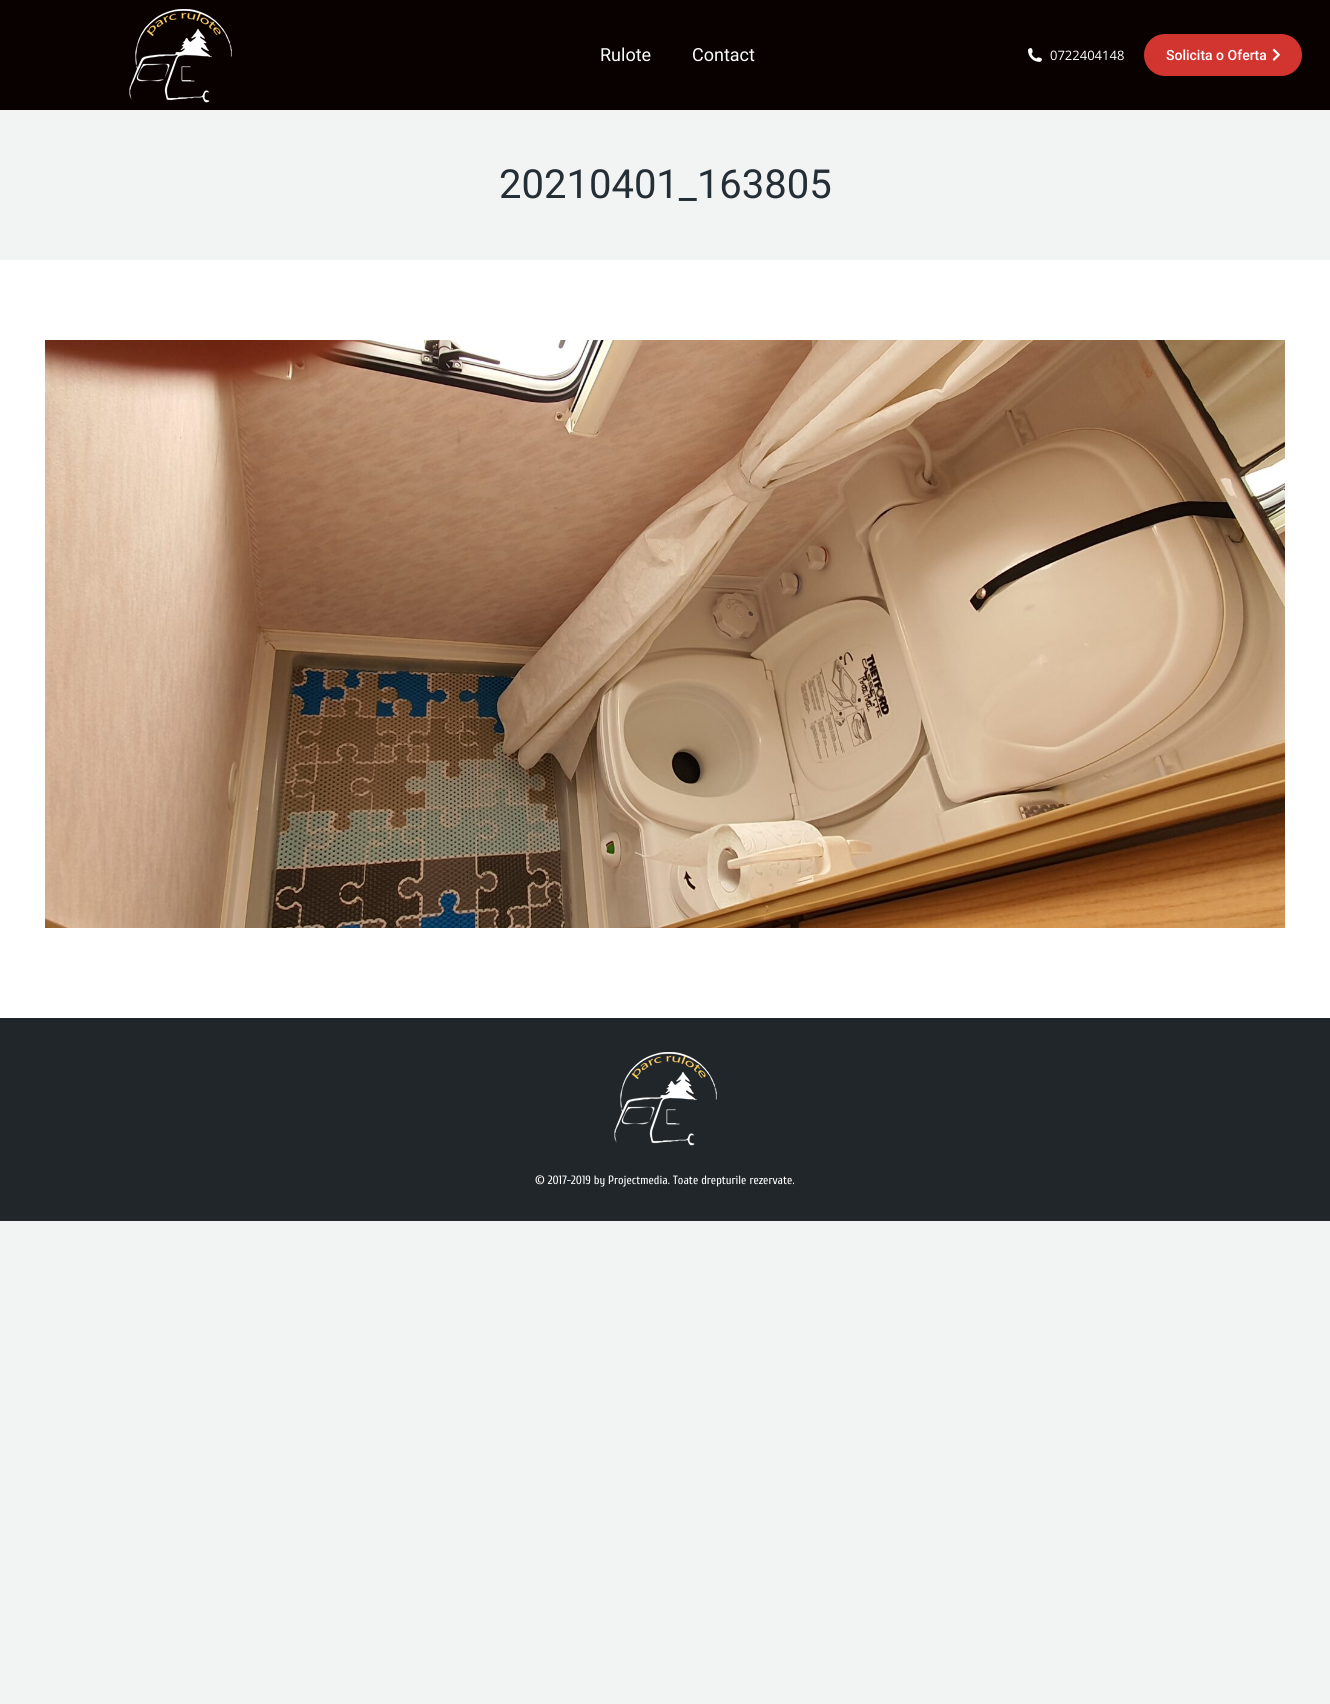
import math
import cairo


def round_path(ctx, x, y, w, h, r):
	ctx.new_sub_path()
	for i, (u, v) in enumerate([(x + w - r, y + h - r), (x + r, y + h - r), (x + r, y + r), (x + w - r, y + r)]):
		ctx.arc(u, v, r, i * math.pi / 2, (i + 1) * math.pi / 2)
	ctx.close_path()

def paste(ctx, path, x, y, w, h):
	ctx.save()
	ctx.set_source_surface(cairo.ImageSurface.create_from_png(path), x, y)
	ctx.rectangle(x, y, w, h)
	ctx.fill()
	ctx.restore()

def draw(ctx):
	ctx.set_source_rgb(0.949, 0.953, 0.953)
	ctx.paint()
	ctx.set_source_rgb(1, 1, 1)
	ctx.rectangle(0, 260, 1330, 758)
	ctx.fill()
	ctx.set_source_rgb(0.039, 0, 0)
	ctx.rectangle(0, 0, 1330, 110)
	ctx.fill()
	paste(ctx, 'media/1.png', 129, 9, 103, 94)
	ctx.select_font_face('Roboto')
	ctx.set_font_size(18)
	ctx.set_source_rgb(1, 1, 1)
	ctx.move_to(600, 61)
	ctx.show_text('Rulote')
	ctx.move_to(692, 61)
	ctx.show_text('Contact')
	paste(ctx, 'media/2.png', 1028, 48, 14, 14)
	ctx.select_font_face('Open Sans')
	ctx.set_font_size(13)
	ctx.move_to(1050, 60)
	ctx.show_text('0722404148')
	ctx.set_source_rgb(0.824, 0.204, 0.188)
	round_path(ctx, 1144, 34, 158, 42, 21)
	ctx.fill()
	ctx.select_font_face('Roboto Medium')
	ctx.set_font_size(14)
	ctx.set_source_rgb(1, 1, 1)
	ctx.move_to(1166, 60)
	ctx.show_text('Solicita o Oferta')
	paste(ctx, 'media/3.png', 1272, 48, 8, 13)
	ctx.select_font_face('Roboto')
	ctx.set_font_size(40)
	ctx.set_source_rgb(0.141, 0.18, 0.208)
	ctx.move_to(499, 198)
	ctx.show_text('20210401_163805')
	paste(ctx, 'media/4.png', 45, 340, 1240, 588)
	ctx.set_source_rgb(0.125, 0.149, 0.165)
	ctx.rectangle(0, 1018, 1330, 203)
	ctx.fill()
	paste(ctx, 'media/5.png', 614, 1052, 103, 94)
	ctx.select_font_face('Cuprum')
	ctx.set_font_size(12)
	ctx.set_source_rgb(1, 1, 1)
	ctx.move_to(535, 1184)
	ctx.show_text('© 2017-2019 by Projectmedia. Toate drepturile rezervate.')


surface = cairo.ImageSurface(cairo.FORMAT_RGB24, 1330, 1704)
ctx = cairo.Context(surface)
options = cairo.FontOptions()
options.set_hint_metrics(cairo.HINT_METRICS_OFF)
options.set_hint_style(cairo.HINT_STYLE_NONE)
ctx.set_font_options(options)
ctx.set_miter_limit(4)
draw(ctx)
surface.write_to_png('image.png')
